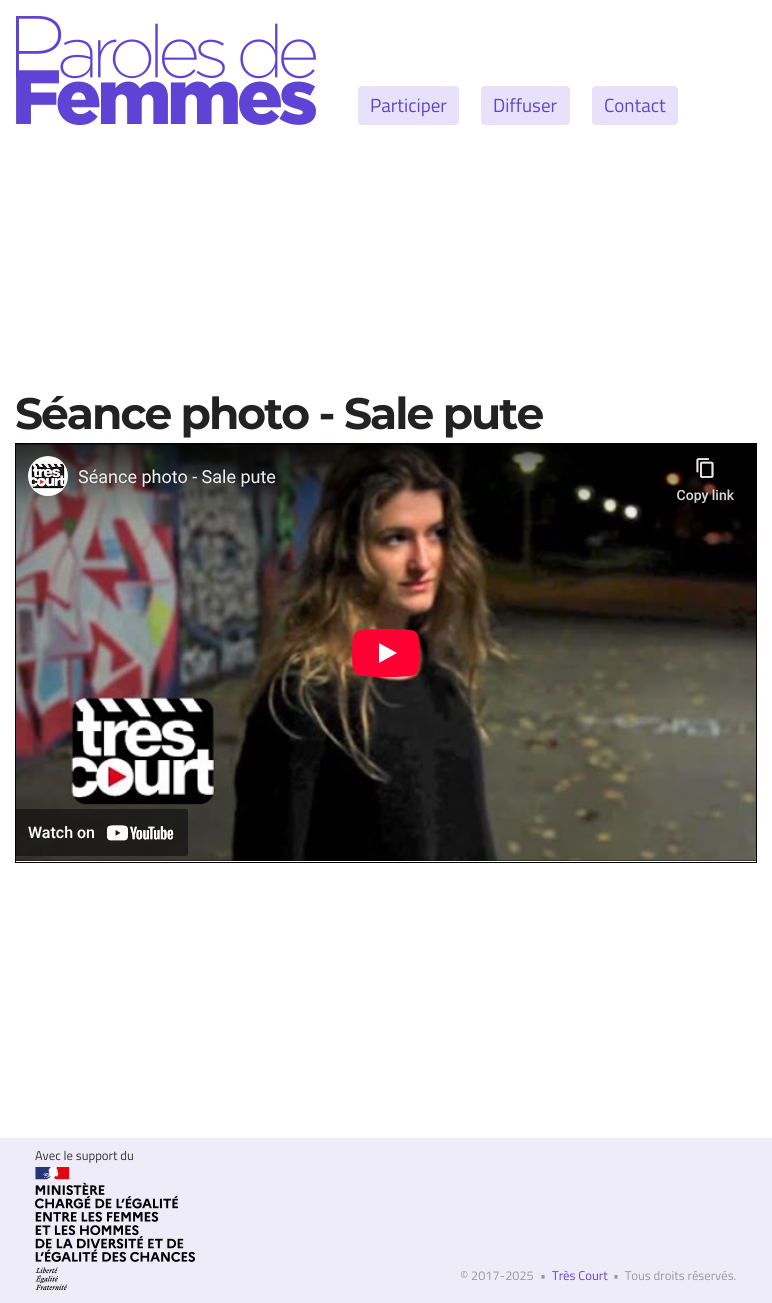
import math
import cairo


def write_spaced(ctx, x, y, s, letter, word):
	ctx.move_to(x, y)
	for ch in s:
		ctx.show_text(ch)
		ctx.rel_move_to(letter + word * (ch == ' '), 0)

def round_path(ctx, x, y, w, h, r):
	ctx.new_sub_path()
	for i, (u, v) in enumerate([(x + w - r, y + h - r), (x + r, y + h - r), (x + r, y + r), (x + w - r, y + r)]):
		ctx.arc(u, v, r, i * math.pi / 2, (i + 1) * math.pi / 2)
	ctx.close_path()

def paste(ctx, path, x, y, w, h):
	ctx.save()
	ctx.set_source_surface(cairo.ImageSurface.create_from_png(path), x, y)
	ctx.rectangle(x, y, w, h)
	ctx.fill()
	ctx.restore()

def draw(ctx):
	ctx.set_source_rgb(1, 1, 1)
	ctx.paint()
	paste(ctx, 'media/1.png', 16, 16, 300, 109)
	ctx.set_source_rgb(0.906, 0.886, 0.973)
	round_path(ctx, 358, 86, 101, 39, 4)
	ctx.fill()
	ctx.select_font_face('Titillium Web')
	ctx.set_font_size(19)
	ctx.set_source_rgb(0.373, 0.263, 0.831)
	ctx.move_to(370, 112)
	ctx.show_text('Participer')
	ctx.set_source_rgb(0.906, 0.886, 0.973)
	round_path(ctx, 481, 86, 89, 39, 4)
	ctx.fill()
	ctx.set_source_rgb(0.373, 0.263, 0.831)
	ctx.move_to(493, 112)
	ctx.show_text('Diffuser')
	ctx.set_source_rgb(0.906, 0.886, 0.973)
	round_path(ctx, 592, 86, 86, 39, 4)
	ctx.fill()
	ctx.set_source_rgb(0.373, 0.263, 0.831)
	ctx.move_to(604, 112)
	ctx.show_text('Contact')
	ctx.select_font_face('Montserrat', cairo.FONT_SLANT_NORMAL, cairo.FONT_WEIGHT_BOLD)
	ctx.set_font_size(44)
	ctx.set_source_rgb(0.133, 0.133, 0.133)
	write_spaced(ctx, 15, 429, 'Séance photo - Sale pute', -2, 0)
	ctx.rectangle(15.5, 443.5, 741, 419)
	ctx.set_source_rgb(0, 0, 0)
	ctx.set_line_width(1)
	ctx.stroke()
	paste(ctx, 'media/2.png', 16, 444, 740, 417)
	ctx.set_source_rgb(0.937, 0.925, 0.98)
	ctx.rectangle(0, 1138, 772, 165)
	ctx.fill()
	ctx.select_font_face('Titillium Web')
	ctx.set_font_size(12.75)
	ctx.set_source_rgb(0.2, 0.2, 0.2)
	ctx.move_to(35, 1160)
	ctx.show_text('Avec le support du')
	paste(ctx, 'media/3.png', 35, 1167, 160, 123)
	ctx.set_source_rgb(0.6, 0.6, 0.6)
	ctx.move_to(460, 1280)
	ctx.show_text('© 2017-2025')
	ctx.move_to(540, 1280)
	ctx.show_text('•')
	ctx.set_source_rgb(0.373, 0.263, 0.831)
	ctx.move_to(552, 1280)
	ctx.show_text('Très Court')
	ctx.set_source_rgb(0.6, 0.6, 0.6)
	ctx.move_to(613, 1280)
	ctx.show_text('•  Tous droits réservés.')


surface = cairo.ImageSurface(cairo.FORMAT_RGB24, 772, 1303)
ctx = cairo.Context(surface)
options = cairo.FontOptions()
options.set_hint_metrics(cairo.HINT_METRICS_OFF)
options.set_hint_style(cairo.HINT_STYLE_NONE)
ctx.set_font_options(options)
ctx.set_miter_limit(4)
draw(ctx)
surface.write_to_png('image.png')
